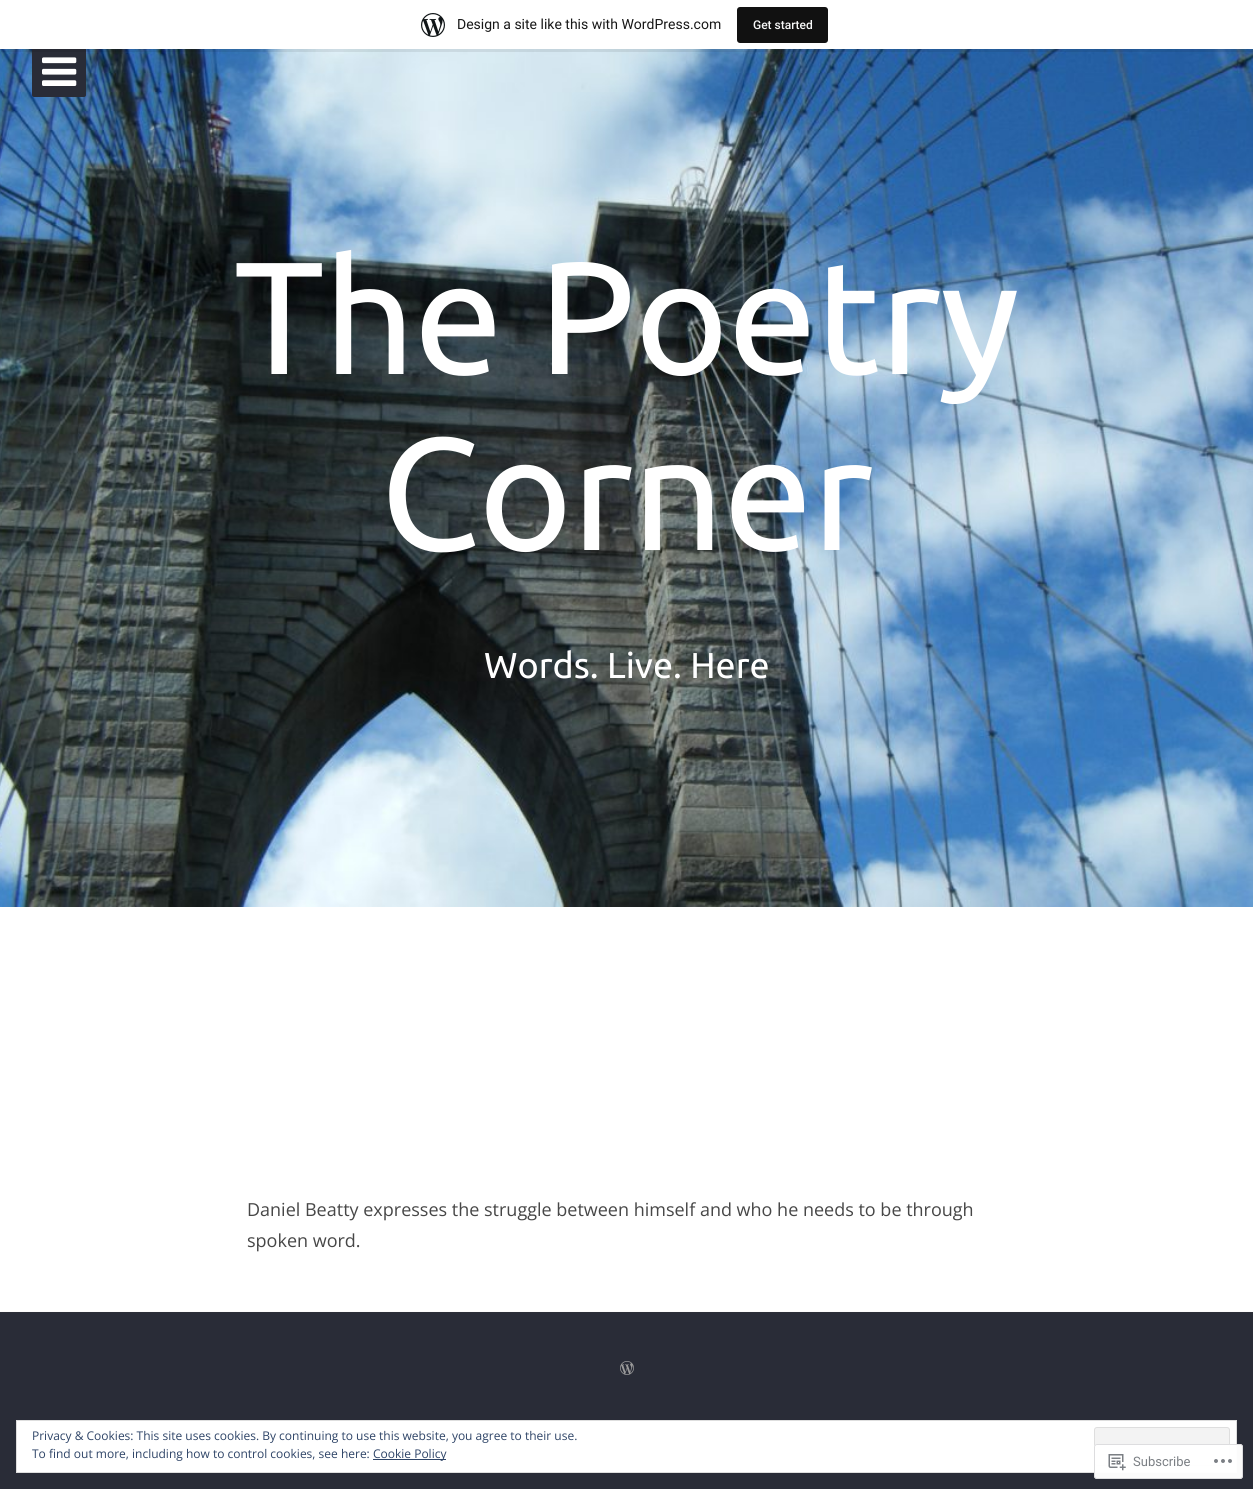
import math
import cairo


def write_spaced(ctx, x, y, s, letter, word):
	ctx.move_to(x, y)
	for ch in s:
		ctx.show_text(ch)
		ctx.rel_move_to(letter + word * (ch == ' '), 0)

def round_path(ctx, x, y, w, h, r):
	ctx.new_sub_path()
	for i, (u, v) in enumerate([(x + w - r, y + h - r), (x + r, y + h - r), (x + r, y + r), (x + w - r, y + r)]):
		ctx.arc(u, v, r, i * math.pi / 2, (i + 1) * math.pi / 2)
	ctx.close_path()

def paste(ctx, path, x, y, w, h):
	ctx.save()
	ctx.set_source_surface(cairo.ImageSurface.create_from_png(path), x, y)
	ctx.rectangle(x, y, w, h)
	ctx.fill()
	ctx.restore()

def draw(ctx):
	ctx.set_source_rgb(0.161, 0.173, 0.216)
	ctx.paint()
	paste(ctx, 'media/3.png', 0, 49, 1253, 858)
	ctx.set_source_rgb(0.161, 0.173, 0.216)
	round_path(ctx, 32, 46, 54, 51, 2)
	ctx.fill()
	ctx.set_source_rgba(0, 0, 0, 0.08)
	ctx.new_path()
	ctx.move_to(1, 49)
	ctx.line_to(1, 52)
	ctx.line_to(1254, 52)
	ctx.line_to(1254, 3)
	ctx.line_to(1253, 3)
	ctx.line_to(1253, 49)
	ctx.close_path()
	ctx.fill()
	ctx.set_source_rgb(1, 1, 1)
	ctx.rectangle(0, 0, 1253, 49)
	ctx.fill()
	paste(ctx, 'media/1.png', 421, 13, 24, 24)
	ctx.select_font_face('Roboto')
	ctx.set_font_size(14)
	ctx.set_source_rgb(0.09, 0.09, 0.09)
	ctx.move_to(457, 29)
	ctx.show_text('Design a site like this with WordPress.com')
	ctx.set_source_rgb(0.067, 0.067, 0.067)
	round_path(ctx, 737, 7, 91, 36, 3)
	ctx.fill()
	ctx.select_font_face('Roboto Medium')
	ctx.set_font_size(12)
	ctx.set_source_rgb(0.965, 0.969, 0.969)
	ctx.move_to(753, 29)
	ctx.show_text('Get started')
	paste(ctx, 'media/2.png', 42, 57, 35, 29)
	ctx.select_font_face('Ubuntu')
	ctx.set_font_size(160)
	ctx.set_source_rgb(1, 1, 1)
	write_spaced(ctx, 234, 374, 'The Poetry', -1, 0)
	write_spaced(ctx, 380, 550, 'Corner', -1, 0)
	ctx.set_font_size(36)
	ctx.move_to(484, 678)
	ctx.show_text('Words. Live. Here')
	ctx.rectangle(0, 907, 1253, 404)
	ctx.fill()
	ctx.set_source_rgb(0.988, 0.988, 0.988)
	ctx.rectangle(0, 1311, 1253, 1)
	ctx.fill()
	ctx.select_font_face('Open Sans')
	ctx.set_font_size(18)
	ctx.set_source_rgb(0.278, 0.278, 0.278)
	ctx.move_to(247, 1216)
	ctx.show_text('Daniel Beatty expresses the struggle between himself and who he needs to be through')
	ctx.move_to(247, 1247)
	ctx.show_text('spoken word.')
	ctx.set_source_rgb(0.173, 0.184, 0.22)
	ctx.rectangle(0, 1312, 1253, 1)
	ctx.fill()
	paste(ctx, 'media/4.png', 620, 1361, 14, 14)
	ctx.set_source_rgb(1, 1, 1)
	ctx.rectangle(16.5, 1420.5, 1220, 52)
	ctx.fill_preserve()
	ctx.set_source_rgb(0.871, 0.871, 0.871)
	ctx.set_line_width(1)
	ctx.stroke()
	ctx.set_font_size(12)
	ctx.set_source_rgb(0.18, 0.267, 0.404)
	ctx.move_to(32, 1440)
	ctx.show_text('Privacy & Cookies: This site uses cookies. By continuing to use this website, you agree to their use.')
	ctx.set_source_rgb(0.953, 0.953, 0.953)
	round_path(ctx, 1094.5, 1427.5, 135, 38, 2.5)
	ctx.fill_preserve()
	ctx.set_source_rgb(0.871, 0.871, 0.871)
	ctx.stroke()
	ctx.set_source_rgb(0.18, 0.267, 0.404)
	ctx.move_to(32, 1458)
	ctx.show_text('To find out more, including how to control cookies, see here:')
	ctx.rectangle(373, 1459, 73, 1)
	ctx.fill()
	ctx.move_to(373, 1458)
	ctx.show_text('Cookie Policy')
	ctx.set_source_rgba(1, 1, 1, 0.98)
	round_path(ctx, 1094, 1444, 149, 35, 3)
	ctx.fill()
	round_path(ctx, 1094.5, 1444.5, 148, 34, 2.5)
	ctx.set_source_rgba(0.863, 0.863, 0.871, 0.98)
	ctx.stroke()
	paste(ctx, 'media/5.png', 1108, 1454, 18, 17)
	ctx.select_font_face('Roboto')
	ctx.set_font_size(13)
	ctx.set_source_rgb(0.482, 0.498, 0.518)
	ctx.move_to(1133, 1466)
	ctx.show_text('Subscribe')
	paste(ctx, 'media/6.png', 1214, 1459, 18, 4)


surface = cairo.ImageSurface(cairo.FORMAT_RGB24, 1253, 1489)
ctx = cairo.Context(surface)
options = cairo.FontOptions()
options.set_hint_metrics(cairo.HINT_METRICS_OFF)
options.set_hint_style(cairo.HINT_STYLE_NONE)
ctx.set_font_options(options)
ctx.set_miter_limit(4)
draw(ctx)
surface.write_to_png('image.png')
